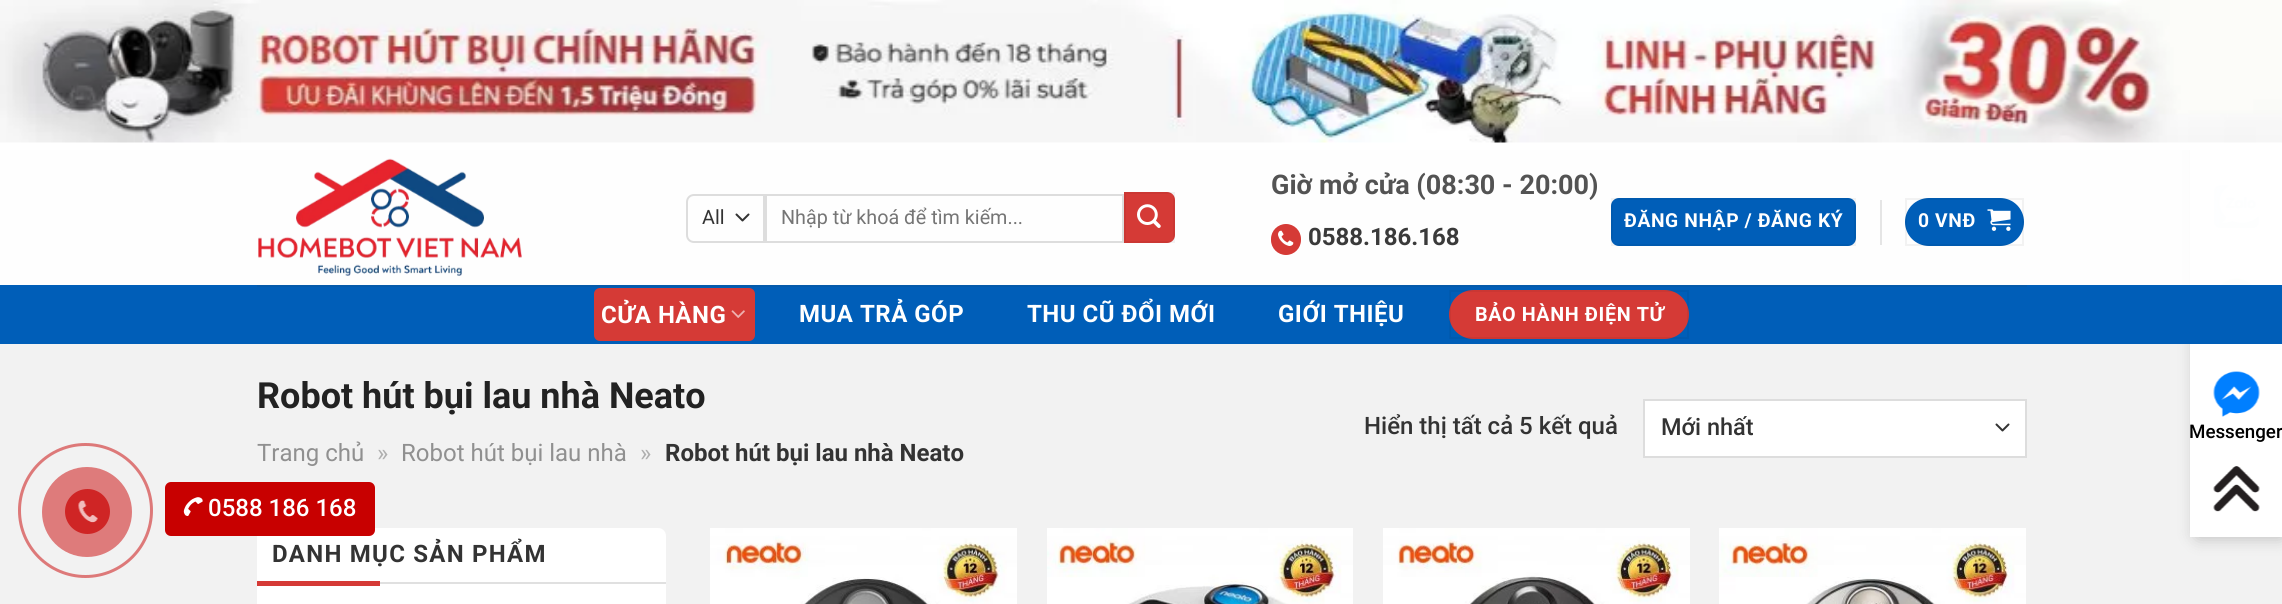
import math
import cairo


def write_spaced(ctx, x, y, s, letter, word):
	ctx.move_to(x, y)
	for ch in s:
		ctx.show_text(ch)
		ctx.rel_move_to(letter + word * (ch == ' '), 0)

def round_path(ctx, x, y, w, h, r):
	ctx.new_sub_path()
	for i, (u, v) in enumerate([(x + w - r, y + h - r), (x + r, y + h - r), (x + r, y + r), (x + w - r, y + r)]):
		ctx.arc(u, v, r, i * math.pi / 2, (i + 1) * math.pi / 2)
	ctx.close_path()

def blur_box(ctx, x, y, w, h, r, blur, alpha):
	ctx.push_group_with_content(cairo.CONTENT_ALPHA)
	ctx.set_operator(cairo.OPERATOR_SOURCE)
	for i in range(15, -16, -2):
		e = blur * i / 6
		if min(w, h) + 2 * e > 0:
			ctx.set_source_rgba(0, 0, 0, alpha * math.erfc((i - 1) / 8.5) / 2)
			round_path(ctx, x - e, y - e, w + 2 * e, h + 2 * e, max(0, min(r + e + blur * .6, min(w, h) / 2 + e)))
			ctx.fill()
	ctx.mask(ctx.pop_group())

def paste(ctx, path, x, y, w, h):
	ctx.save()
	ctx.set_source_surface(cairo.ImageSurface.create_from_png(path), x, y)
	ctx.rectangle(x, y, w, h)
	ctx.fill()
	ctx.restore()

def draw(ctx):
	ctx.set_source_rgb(0.949, 0.949, 0.949)
	ctx.paint()
	ctx.set_source_rgb(0, 0, 0)
	blur_box(ctx, 2193, 72, 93, 468, 6, 7.5, 0.18)
	ctx.set_source_rgb(1, 1, 1)
	ctx.rectangle(2190, 150, 92, 387)
	ctx.fill()
	paste(ctx, 'media/13.png', 2213, 185, 47, 44)
	paste(ctx, 'media/14.png', 2220, 278, 33, 7)
	ctx.set_source_rgba(1, 1, 1, 0.9)
	ctx.rectangle(0, 150, 2260, 135)
	ctx.fill()
	ctx.set_source_rgb(1, 1, 1)
	ctx.rectangle(0, 0, 2282, 150)
	ctx.fill()
	paste(ctx, 'media/1.png', 0, 0, 2282, 143)
	paste(ctx, 'media/2.png', 258, 158, 264, 118)
	ctx.new_path()
	ctx.move_to(736.5, 214.5)
	ctx.line_to(742.5, 220.5)
	ctx.line_to(748.5, 214.5)
	ctx.set_source_rgb(0.2, 0.2, 0.2)
	ctx.set_line_cap(cairo.LINE_CAP_ROUND)
	ctx.set_line_join(cairo.LINE_JOIN_ROUND)
	ctx.stroke()
	ctx.new_path()
	ctx.move_to(694, 195)
	ctx.line_to(764, 195)
	ctx.line_to(764, 242)
	ctx.line_to(694, 242)
	ctx.curve_to(690, 242, 687, 239, 687, 235)
	ctx.line_to(687, 202)
	ctx.curve_to(687, 198, 690, 195, 694, 195)
	ctx.close_path()
	ctx.set_source_rgb(0.867, 0.867, 0.867)
	ctx.set_line_cap(cairo.LINE_CAP_BUTT)
	ctx.set_line_join(cairo.LINE_JOIN_MITER)
	ctx.stroke()
	ctx.select_font_face('Roboto')
	ctx.set_font_size(19.75)
	ctx.set_source_rgb(0.2, 0.2, 0.2)
	ctx.move_to(702, 224)
	ctx.show_text('All')
	ctx.rectangle(766, 195, 357, 47)
	ctx.set_source_rgb(0.867, 0.867, 0.867)
	ctx.stroke()
	ctx.set_source_rgb(0.459, 0.459, 0.459)
	ctx.move_to(781, 224)
	ctx.show_text('Nhập từ khoá để tìm kiếm...')
	ctx.set_source_rgb(0.835, 0.227, 0.212)
	ctx.new_path()
	ctx.move_to(1124, 192)
	ctx.line_to(1167, 192)
	ctx.curve_to(1171.5, 192, 1175, 195.5, 1175, 200)
	ctx.line_to(1175, 235)
	ctx.curve_to(1175, 239.5, 1171.5, 243, 1167, 243)
	ctx.line_to(1124, 243)
	ctx.close_path()
	ctx.fill()
	ctx.rectangle(1125, 193, 49, 49)
	ctx.set_source_rgba(0, 0, 0, 0.05)
	ctx.stroke()
	paste(ctx, 'media/3.png', 1137, 204, 24, 24)
	ctx.select_font_face('Roboto', cairo.FONT_SLANT_NORMAL, cairo.FONT_WEIGHT_BOLD)
	ctx.set_font_size(27)
	ctx.set_source_rgb(0.325, 0.325, 0.325)
	ctx.move_to(1271, 194)
	ctx.show_text('Giờ mở cửa (08:30 - 20:00)')
	ctx.set_source_rgb(0.835, 0.227, 0.212)
	round_path(ctx, 1271, 224, 30, 31, 15)
	ctx.fill()
	paste(ctx, 'media/4.png', 1278, 230, 16, 16)
	ctx.set_font_size(24)
	ctx.set_source_rgb(0.227, 0.227, 0.227)
	ctx.move_to(1308, 245)
	ctx.show_text('0588.186.168')
	ctx.set_source_rgb(0, 0.369, 0.722)
	round_path(ctx, 1611, 198, 245, 48, 8)
	ctx.fill()
	ctx.rectangle(1612, 199, 243, 46)
	ctx.set_source_rgba(0, 0, 0, 0.05)
	ctx.stroke()
	ctx.set_font_size(19.25)
	ctx.set_source_rgb(1, 1, 1)
	write_spaced(ctx, 1624, 227, 'ĐĂNG NHẬP / ĐĂNG KÝ', 0.6, 0)
	ctx.set_source_rgb(0.898, 0.898, 0.898)
	ctx.rectangle(1880, 200, 2, 45)
	ctx.fill()
	ctx.set_source_rgb(0, 0.369, 0.722)
	round_path(ctx, 1905, 198, 119, 48, 24)
	ctx.fill()
	ctx.rectangle(1906, 199, 117, 46)
	ctx.set_source_rgba(0, 0, 0, 0.05)
	ctx.stroke()
	ctx.set_source_rgb(1, 1, 1)
	write_spaced(ctx, 1918, 227, '0 VNĐ', 0.6, 0)
	paste(ctx, 'media/5.png', 1987, 209, 24, 22)
	ctx.set_source_rgb(0, 0.369, 0.722)
	ctx.rectangle(0, 285, 2282, 59)
	ctx.fill()
	ctx.set_source_rgb(0.02, 0.353, 0.671)
	ctx.rectangle(257, 285, 1770, 2)
	ctx.fill()
	ctx.set_source_rgba(1, 1, 1, 0.9)
	ctx.rectangle(2213, 185, 47, 100)
	ctx.fill()
	ctx.set_source_rgb(0.835, 0.227, 0.212)
	round_path(ctx, 594, 288, 161, 53, 6)
	ctx.fill()
	ctx.set_font_size(24)
	ctx.set_source_rgb(1, 1, 1)
	write_spaced(ctx, 601, 323, 'CỬA HÀNG', 0.5, 0)
	paste(ctx, 'media/6.png', 731, 310, 14, 8)
	for x, y, s in [
		(799, 322, 'MUA TRẢ GÓP'),
		(1027, 322, 'THU CŨ ĐỔI MỚI'),
		(1278, 322, 'GIỚI THIỆU'),
	]:
		write_spaced(ctx, x, y, s, 0.5, 0)
	ctx.set_source_rgb(0.835, 0.227, 0.212)
	round_path(ctx, 1449, 290, 240, 49, 24.5)
	ctx.fill()
	ctx.rectangle(1450, 291, 238, 47)
	ctx.set_source_rgba(0, 0, 0, 0.05)
	ctx.stroke()
	ctx.set_font_size(19.75)
	ctx.set_source_rgb(1, 1, 1)
	write_spaced(ctx, 1475, 321, 'BẢO HÀNH ĐIỆN TỬ', 0.6, 0)
	ctx.set_font_size(36)
	ctx.set_source_rgb(0.133, 0.133, 0.133)
	ctx.move_to(257, 408)
	ctx.show_text('Robot hút bụi lau nhà Neato')
	ctx.select_font_face('Roboto')
	ctx.set_font_size(24)
	ctx.set_source_rgb(0.565, 0.565, 0.565)
	ctx.move_to(257, 461)
	ctx.show_text('Trang chủ')
	ctx.set_source_rgb(0.686, 0.686, 0.686)
	ctx.move_to(377, 461)
	ctx.show_text('»')
	ctx.set_source_rgb(0.565, 0.565, 0.565)
	ctx.move_to(401, 461)
	ctx.show_text('Robot hút bụi lau nhà')
	ctx.set_source_rgb(0.686, 0.686, 0.686)
	ctx.move_to(640, 461)
	ctx.show_text('»')
	ctx.select_font_face('Roboto', cairo.FONT_SLANT_NORMAL, cairo.FONT_WEIGHT_BOLD)
	ctx.set_source_rgb(0.2, 0.2, 0.2)
	ctx.move_to(665, 461)
	ctx.show_text('Robot hút bụi lau nhà Neato')
	ctx.select_font_face('Roboto Medium')
	ctx.move_to(1364, 434)
	ctx.show_text('Hiển thị tất cả 5 kết quả')
	ctx.set_source_rgb(1, 1, 1)
	ctx.rectangle(1645, 401, 380, 55)
	ctx.fill()
	ctx.new_path()
	ctx.move_to(1996.5, 424.5)
	ctx.line_to(2002.5, 430.5)
	ctx.line_to(2008.5, 424.5)
	ctx.set_source_rgb(0.2, 0.2, 0.2)
	ctx.set_line_cap(cairo.LINE_CAP_ROUND)
	ctx.set_line_join(cairo.LINE_JOIN_ROUND)
	ctx.stroke()
	ctx.rectangle(1644, 400, 382, 57)
	ctx.set_source_rgb(0.867, 0.867, 0.867)
	ctx.set_line_cap(cairo.LINE_CAP_BUTT)
	ctx.set_line_join(cairo.LINE_JOIN_MITER)
	ctx.stroke()
	ctx.set_font_size(23.5)
	ctx.set_source_rgb(0.2, 0.2, 0.2)
	ctx.move_to(1661, 435)
	ctx.show_text('Mới nhất')
	ctx.new_path()
	ctx.arc(85.5, 510.5, 66, 0, 2 * math.pi)
	ctx.set_source_rgb(0.867, 0.475, 0.475)
	ctx.set_line_width(3)
	ctx.stroke()
	ctx.set_source_rgb(0.871, 0.482, 0.482)
	ctx.arc(87, 512, 45, 0, 2 * math.pi)
	ctx.fill()
	ctx.set_source_rgb(0.812, 0.145, 0.145)
	ctx.arc(87.5, 511.5, 22.5, 0, 2 * math.pi)
	ctx.fill()
	paste(ctx, 'media/7.png', 78, 500, 20, 23)
	ctx.set_source_rgb(1, 1, 1)
	ctx.new_path()
	ctx.move_to(265, 528)
	ctx.line_to(658, 528)
	ctx.curve_to(662.5, 528, 666, 531.5, 666, 536)
	ctx.line_to(666, 584)
	ctx.line_to(257, 584)
	ctx.line_to(257, 536)
	ctx.curve_to(257, 531.5, 260.5, 528, 265, 528)
	ctx.close_path()
	ctx.fill()
	ctx.set_source_rgb(0.784, 0, 0)
	round_path(ctx, 165, 482, 210, 54, 6)
	ctx.fill()
	paste(ctx, 'media/8.png', 183, 497, 20, 19)
	ctx.set_font_size(24)
	ctx.set_source_rgb(1, 1, 1)
	ctx.move_to(208, 516)
	ctx.show_text('0588 186 168')
	ctx.set_source_rgb(0.878, 0.878, 0.878)
	ctx.rectangle(380, 582, 286, 2)
	ctx.fill()
	ctx.select_font_face('Roboto', cairo.FONT_SLANT_NORMAL, cairo.FONT_WEIGHT_BOLD)
	ctx.set_source_rgb(0.2, 0.2, 0.2)
	write_spaced(ctx, 272, 562, 'DANH MỤC SẢN PHẨM', 1.25, 0)
	ctx.set_source_rgb(1, 1, 1)
	ctx.rectangle(257, 584, 409, 20)
	ctx.fill()
	ctx.set_source_rgb(0.835, 0.227, 0.212)
	ctx.rectangle(257, 581, 123, 5)
	ctx.fill()
	paste(ctx, 'media/9.png', 710, 528, 307, 76)
	paste(ctx, 'media/10.png', 1047, 528, 306, 76)
	paste(ctx, 'media/11.png', 1383, 528, 307, 76)
	paste(ctx, 'media/12.png', 1719, 528, 307, 76)
	paste(ctx, 'media/15.png', 2213, 371, 47, 46)
	ctx.select_font_face('Roboto Medium')
	ctx.set_font_size(18.75)
	ctx.set_source_rgb(0, 0, 0)
	ctx.move_to(2189, 438)
	ctx.show_text('Messenger')
	paste(ctx, 'media/16.png', 2213, 466, 47, 46)


surface = cairo.ImageSurface(cairo.FORMAT_RGB24, 2282, 604)
ctx = cairo.Context(surface)
options = cairo.FontOptions()
options.set_hint_metrics(cairo.HINT_METRICS_OFF)
options.set_hint_style(cairo.HINT_STYLE_NONE)
ctx.set_font_options(options)
ctx.set_miter_limit(4)
draw(ctx)
surface.write_to_png('image.png')
